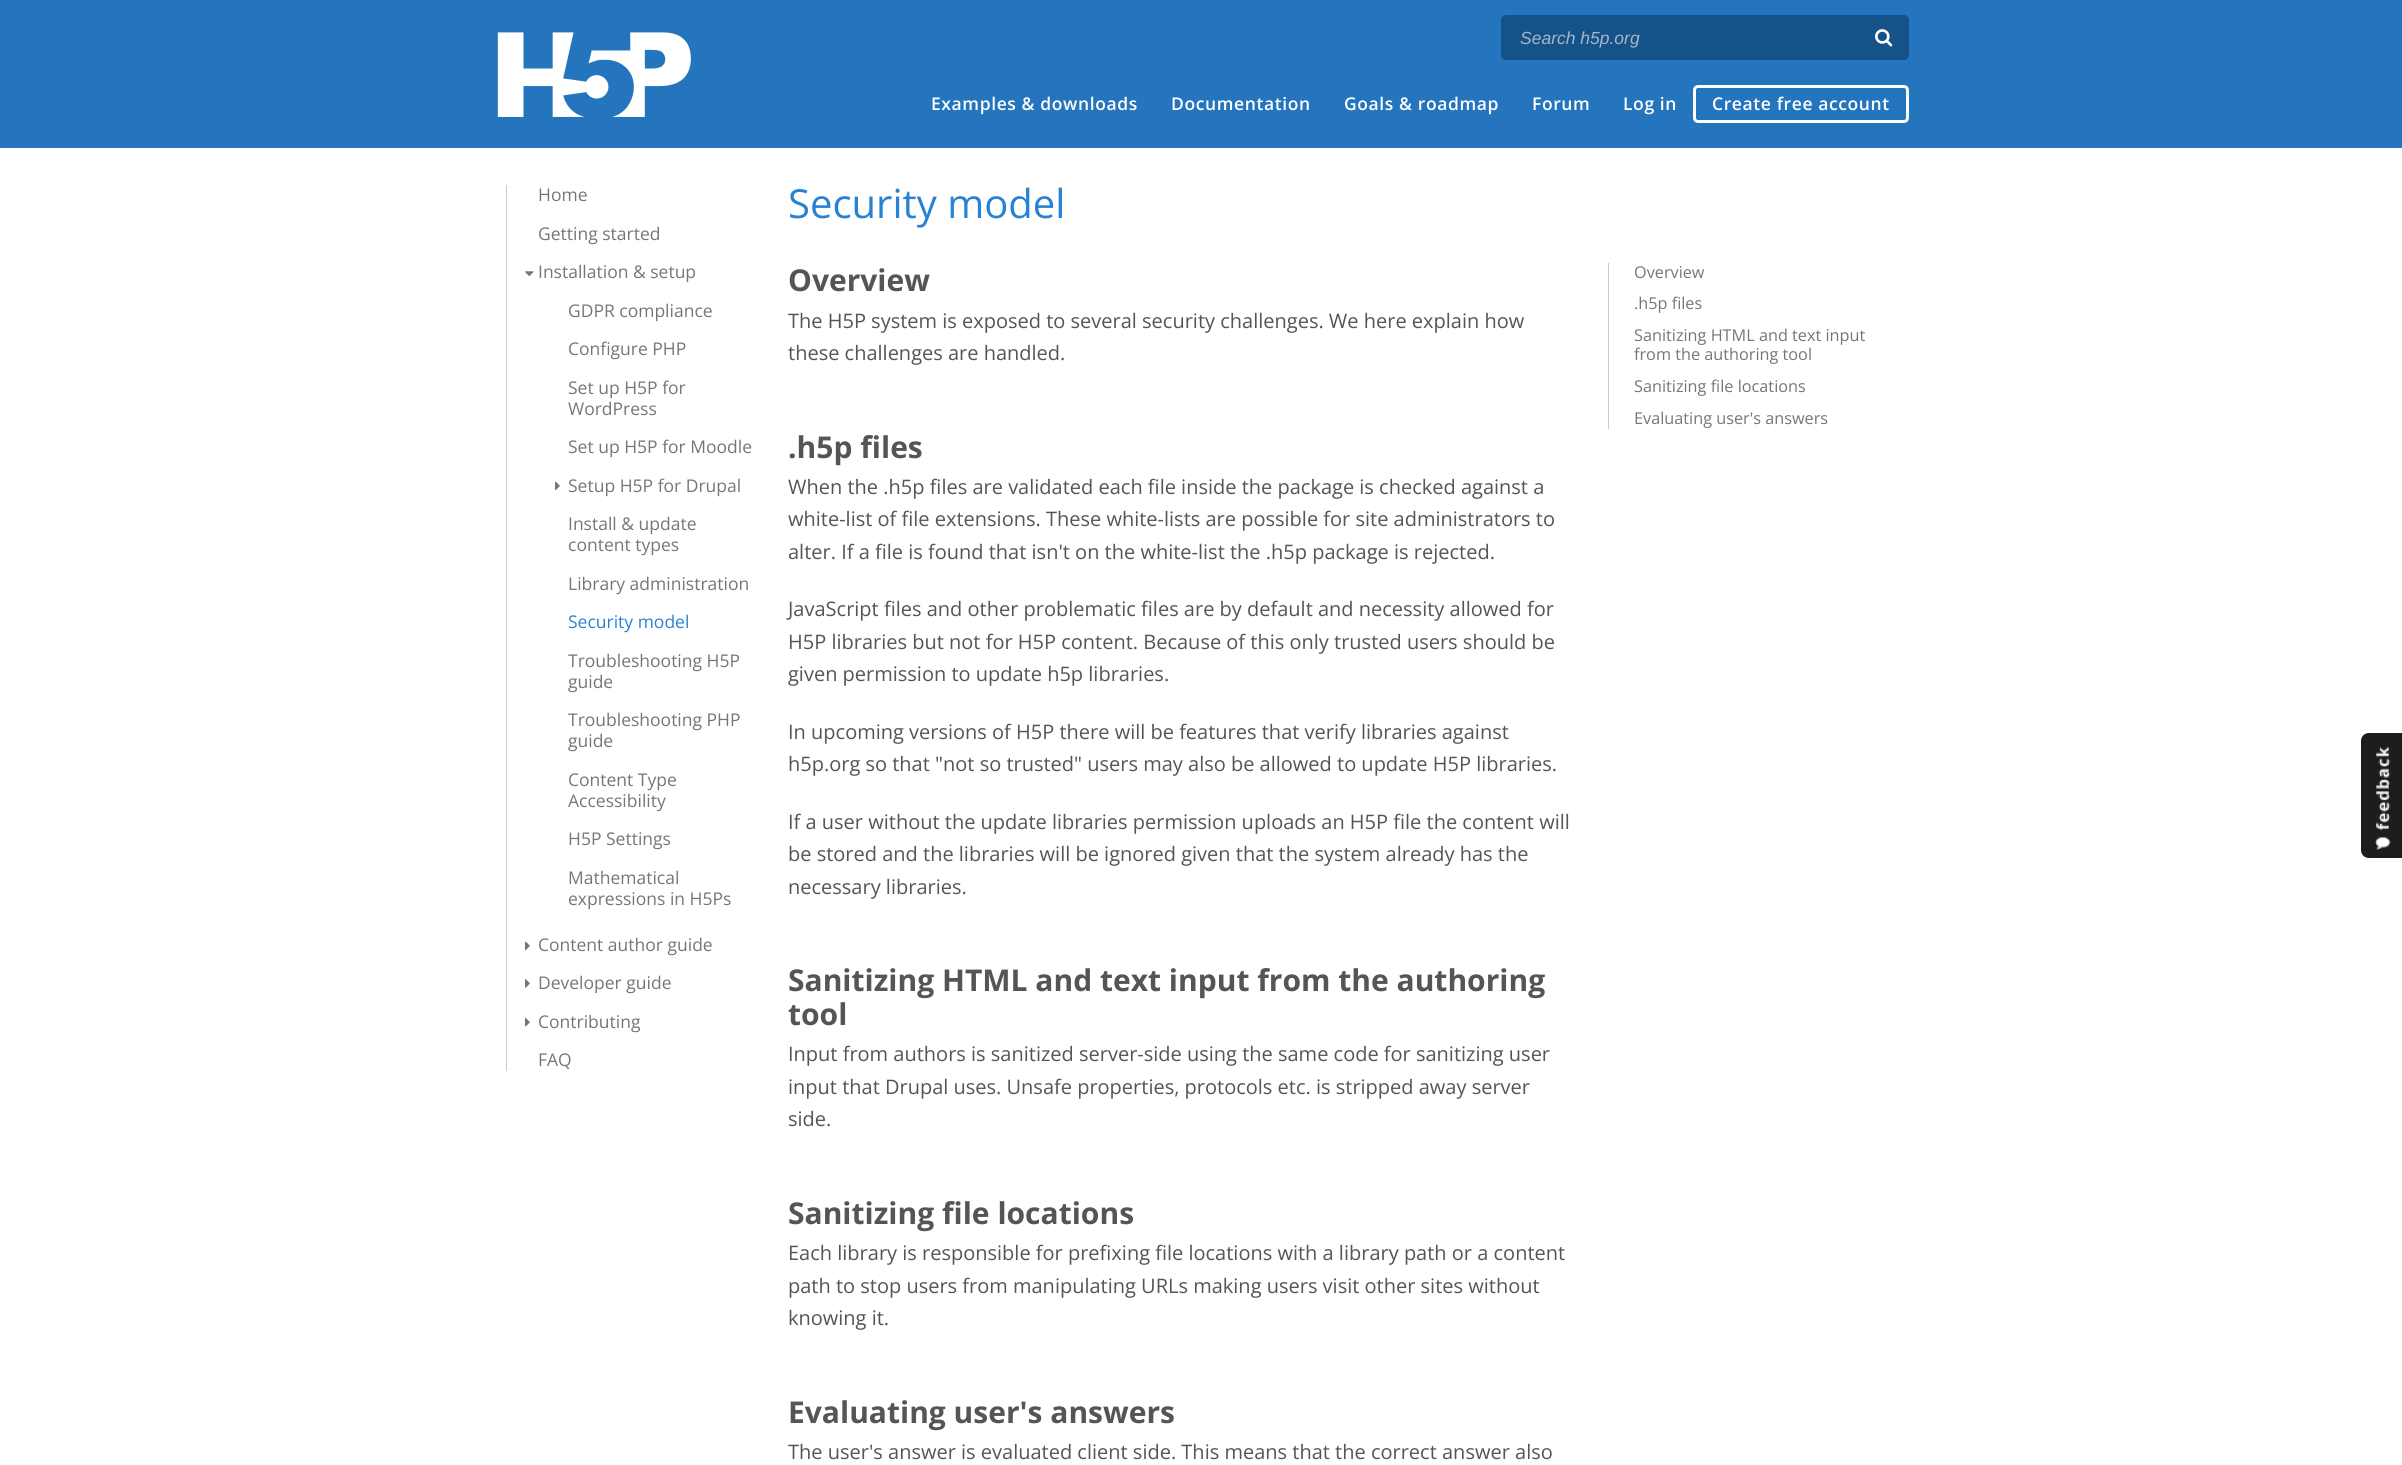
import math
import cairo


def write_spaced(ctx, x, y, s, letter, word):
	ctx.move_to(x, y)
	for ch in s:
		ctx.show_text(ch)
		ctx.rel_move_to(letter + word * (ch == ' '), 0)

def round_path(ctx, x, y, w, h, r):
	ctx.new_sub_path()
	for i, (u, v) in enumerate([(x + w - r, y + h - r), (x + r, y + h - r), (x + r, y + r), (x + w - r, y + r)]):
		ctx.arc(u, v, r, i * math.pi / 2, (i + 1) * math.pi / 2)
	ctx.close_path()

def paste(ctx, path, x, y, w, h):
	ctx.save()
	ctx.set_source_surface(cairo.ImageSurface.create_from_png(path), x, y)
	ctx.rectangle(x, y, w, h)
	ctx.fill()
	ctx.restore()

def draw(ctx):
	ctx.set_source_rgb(1, 1, 1)
	ctx.paint()
	ctx.set_source_rgb(0.145, 0.459, 0.745)
	ctx.rectangle(0, 0, 2402, 148)
	ctx.fill()
	paste(ctx, 'media/1.png', 497, 32, 194, 85)
	ctx.set_source_rgb(0.082, 0.322, 0.537)
	round_path(ctx, 1501, 15, 408, 45, 5)
	ctx.fill()
	ctx.select_font_face('Liberation Sans', cairo.FONT_SLANT_ITALIC)
	ctx.set_font_size(17.5)
	ctx.set_source_rgb(0.655, 0.714, 0.788)
	ctx.move_to(1520, 44)
	ctx.show_text('Search h5p.org')
	paste(ctx, 'media/2.png', 1875, 29, 18, 18)
	ctx.select_font_face('Open Sans SemiBold')
	ctx.set_source_rgb(1, 1, 1)
	for x, y, s in [
		(931, 110, 'Examples & downloads'),
		(1171, 110, 'Documentation'),
		(1344, 110, 'Goals & roadmap'),
		(1532, 110, 'Forum'),
		(1623, 110, 'Log in'),
	]:
		write_spaced(ctx, x, y, s, 0.6, 0)
	round_path(ctx, 1694.5, 86.5, 213, 35, 3.5)
	ctx.set_line_width(3)
	ctx.stroke()
	write_spaced(ctx, 1712, 110, 'Create free account', 0.6, 0)
	ctx.set_source_rgb(0.8, 0.8, 0.8)
	ctx.rectangle(506, 185, 1, 886)
	ctx.fill()
	ctx.select_font_face('Open Sans')
	ctx.set_source_rgb(0.463, 0.463, 0.463)
	ctx.move_to(538, 201)
	ctx.show_text('Home')
	ctx.move_to(538, 240)
	ctx.show_text('Getting started')
	paste(ctx, 'media/3.png', 525, 271, 9, 5)
	for x, y, s in [
		(538, 278, 'Installation & setup'),
		(568, 317, 'GDPR compliance'),
		(568, 355, 'Configure PHP'),
		(568, 394, 'Set up H5P for'),
		(568, 415, 'WordPress'),
		(568, 453, 'Set up H5P for Moodle'),
	]:
		ctx.move_to(x, y)
		ctx.show_text(s)
	paste(ctx, 'media/4.png', 555, 481, 5, 10)
	for x, y, s in [
		(568, 492, 'Setup H5P for Drupal'),
		(568, 530, 'Install & update'),
		(568, 551, 'content types'),
		(568, 590, 'Library administration'),
	]:
		ctx.move_to(x, y)
		ctx.show_text(s)
	ctx.set_source_rgb(0.157, 0.51, 0.827)
	ctx.move_to(568, 628)
	ctx.show_text('Security model')
	ctx.set_source_rgb(0.463, 0.463, 0.463)
	for x, y, s in [
		(568, 667, 'Troubleshooting H5P'),
		(568, 688, 'guide'),
		(568, 726, 'Troubleshooting PHP'),
		(568, 747, 'guide'),
		(568, 786, 'Content Type'),
		(568, 807, 'Accessibility'),
		(568, 845, 'H5P Settings'),
		(568, 884, 'Mathematical'),
		(568, 905, 'expressions in H5Ps'),
	]:
		ctx.move_to(x, y)
		ctx.show_text(s)
	paste(ctx, 'media/4.png', 525, 941, 5, 10)
	ctx.move_to(538, 951)
	ctx.show_text('Content author guide')
	paste(ctx, 'media/5.png', 525, 979, 5, 9)
	ctx.move_to(538, 989)
	ctx.show_text('Developer guide')
	paste(ctx, 'media/6.png', 525, 1017, 5, 10)
	ctx.move_to(538, 1028)
	ctx.show_text('Contributing')
	ctx.move_to(538, 1066)
	ctx.show_text('FAQ')
	ctx.set_font_size(40)
	ctx.set_source_rgb(0.157, 0.51, 0.827)
	ctx.move_to(788, 218)
	ctx.show_text('Security model')
	ctx.select_font_face('Open Sans', cairo.FONT_SLANT_NORMAL, cairo.FONT_WEIGHT_BOLD)
	ctx.set_font_size(30)
	ctx.set_source_rgb(0.333, 0.333, 0.333)
	ctx.move_to(788, 291)
	ctx.show_text('Overview')
	ctx.select_font_face('Open Sans')
	ctx.set_font_size(20)
	ctx.move_to(788, 328)
	ctx.show_text('The H5P system is exposed to several security challenges. We here explain how')
	ctx.move_to(788, 360)
	ctx.show_text('these challenges are handled.')
	ctx.select_font_face('Open Sans', cairo.FONT_SLANT_NORMAL, cairo.FONT_WEIGHT_BOLD)
	ctx.set_font_size(30)
	ctx.move_to(788, 458)
	ctx.show_text('.h5p files')
	ctx.select_font_face('Open Sans')
	ctx.set_font_size(20)
	for x, y, s in [
		(788, 494, 'When the .h5p files are validated each file inside the package is checked against a'),
		(788, 526, 'white-list of file extensions. These white-lists are possible for site administrators to'),
		(788, 559, 'alter. If a file is found that isn\'t on the white-list the .h5p package is rejected.'),
		(788, 616, 'JavaScript files and other problematic files are by default and necessity allowed for'),
		(788, 649, 'H5P libraries but not for H5P content. Because of this only trusted users should be'),
		(788, 681, 'given permission to update h5p libraries.'),
		(788, 739, 'In upcoming versions of H5P there will be features that verify libraries against'),
		(788, 771, 'h5p.org so that "not so trusted" users may also be allowed to update H5P libraries.'),
		(788, 829, 'If a user without the update libraries permission uploads an H5P file the content will'),
		(788, 861, 'be stored and the libraries will be ignored given that the system already has the'),
		(788, 894, 'necessary libraries.'),
	]:
		ctx.move_to(x, y)
		ctx.show_text(s)
	ctx.select_font_face('Open Sans', cairo.FONT_SLANT_NORMAL, cairo.FONT_WEIGHT_BOLD)
	ctx.set_font_size(30)
	ctx.move_to(788, 991)
	ctx.show_text('Sanitizing HTML and text input from the authoring')
	ctx.move_to(788, 1025)
	ctx.show_text('tool')
	ctx.select_font_face('Open Sans')
	ctx.set_font_size(20)
	for x, y, s in [
		(788, 1061, 'Input from authors is sanitized server-side using the same code for sanitizing user'),
		(788, 1094, 'input that Drupal uses. Unsafe properties, protocols etc. is stripped away server'),
		(788, 1126, 'side.'),
	]:
		ctx.move_to(x, y)
		ctx.show_text(s)
	ctx.select_font_face('Open Sans', cairo.FONT_SLANT_NORMAL, cairo.FONT_WEIGHT_BOLD)
	ctx.set_font_size(30)
	ctx.move_to(788, 1224)
	ctx.show_text('Sanitizing file locations')
	ctx.select_font_face('Open Sans')
	ctx.set_font_size(20)
	for x, y, s in [
		(788, 1260, 'Each library is responsible for prefixing file locations with a library path or a content'),
		(788, 1293, 'path to stop users from manipulating URLs making users visit other sites without'),
		(788, 1325, 'knowing it.'),
	]:
		ctx.move_to(x, y)
		ctx.show_text(s)
	ctx.select_font_face('Open Sans', cairo.FONT_SLANT_NORMAL, cairo.FONT_WEIGHT_BOLD)
	ctx.set_font_size(30)
	ctx.move_to(788, 1423)
	ctx.show_text('Evaluating user\'s answers')
	ctx.select_font_face('Open Sans')
	ctx.set_font_size(20)
	ctx.move_to(788, 1459)
	ctx.show_text('The user\'s answer is evaluated client side. This means that the correct answer also')
	ctx.set_source_rgb(0.8, 0.8, 0.8)
	ctx.rectangle(1608, 263, 1, 166)
	ctx.fill()
	ctx.set_font_size(16.25)
	ctx.set_source_rgb(0.463, 0.463, 0.463)
	for x, y, s in [
		(1634, 278, 'Overview'),
		(1634, 309, '.h5p files'),
		(1634, 341, 'Sanitizing HTML and text input'),
		(1634, 360, 'from the authoring tool'),
		(1634, 392, 'Sanitizing file locations'),
		(1634, 424, 'Evaluating user\'s answers'),
	]:
		ctx.move_to(x, y)
		ctx.show_text(s)
	ctx.set_source_rgb(0.114, 0.114, 0.114)
	ctx.new_path()
	ctx.move_to(2369, 733)
	ctx.line_to(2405, 733)
	ctx.line_to(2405, 858)
	ctx.line_to(2369, 858)
	ctx.curve_to(2364.5, 858, 2361, 854.5, 2361, 850)
	ctx.line_to(2361, 741)
	ctx.curve_to(2361, 736.5, 2364.5, 733, 2369, 733)
	ctx.close_path()
	ctx.fill()
	paste(ctx, 'media/7.png', 2375, 746, 16, 104)


surface = cairo.ImageSurface(cairo.FORMAT_RGB24, 2402, 1465)
ctx = cairo.Context(surface)
options = cairo.FontOptions()
options.set_hint_metrics(cairo.HINT_METRICS_OFF)
options.set_hint_style(cairo.HINT_STYLE_NONE)
ctx.set_font_options(options)
ctx.set_miter_limit(4)
draw(ctx)
surface.write_to_png('image.png')
